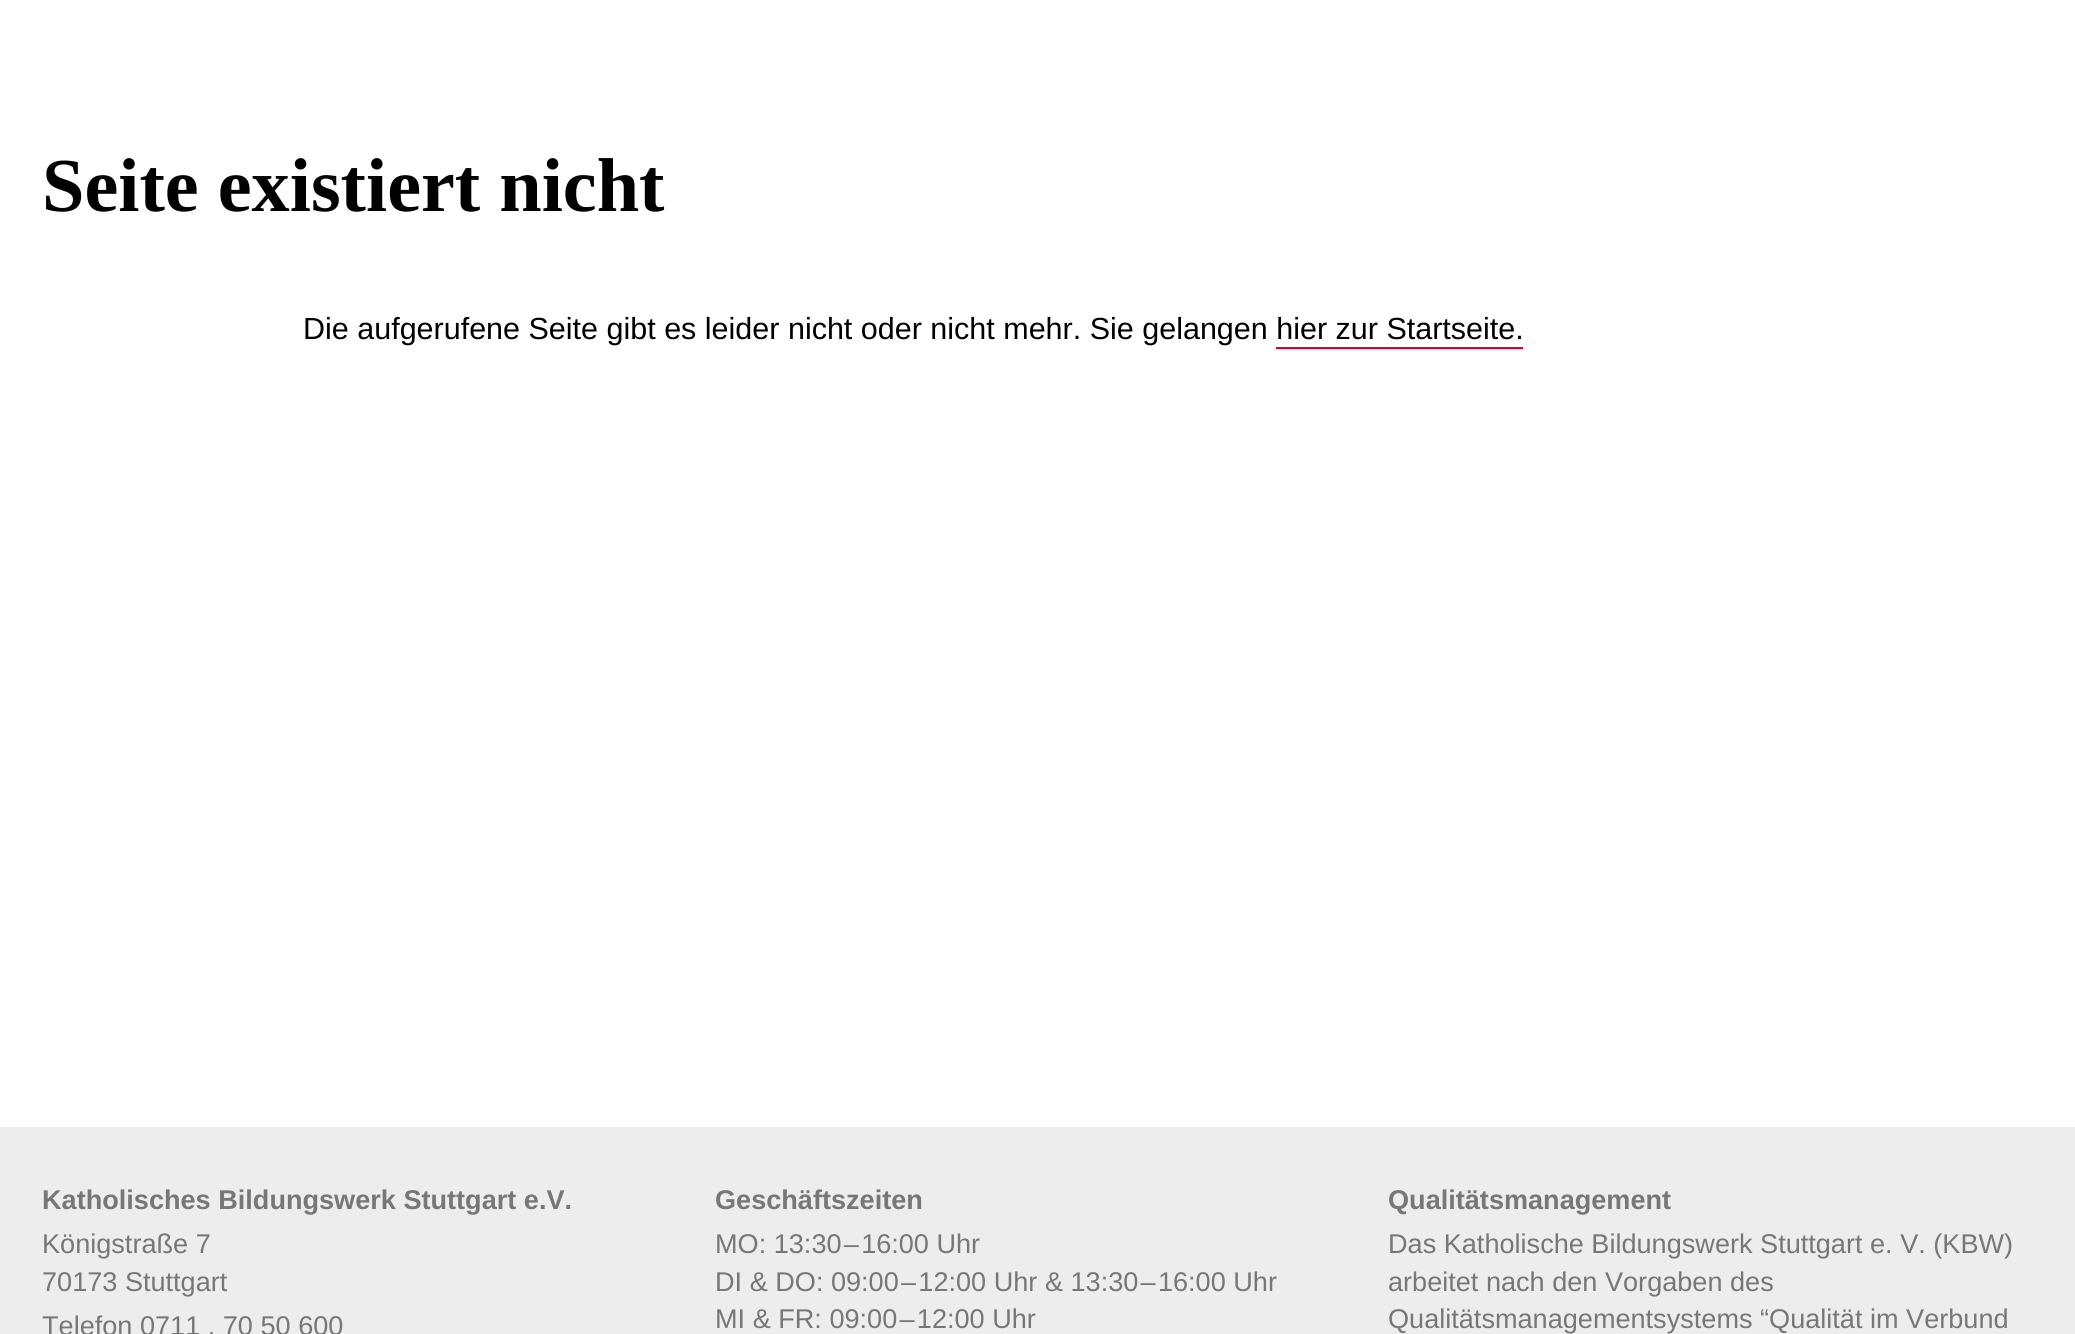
import math
import cairo


def draw(ctx):
	ctx.set_source_rgb(1, 1, 1)
	ctx.paint()
	ctx.select_font_face('Liberation Serif', cairo.FONT_SLANT_NORMAL, cairo.FONT_WEIGHT_BOLD)
	ctx.set_font_size(76.25)
	ctx.set_source_rgb(0, 0, 0)
	ctx.move_to(42, 211)
	ctx.show_text('Seite existiert nicht')
	ctx.select_font_face('Liberation Sans')
	ctx.set_font_size(30.5)
	ctx.move_to(303, 339)
	ctx.show_text('Die aufgerufene Seite gibt es leider nicht oder nicht mehr. Sie gelangen hier zur Startseite.')
	ctx.set_source_rgb(0.835, 0, 0.161)
	ctx.rectangle(1276, 347, 247, 2)
	ctx.fill()
	ctx.set_source_rgb(0.929, 0.929, 0.929)
	ctx.rectangle(0, 1127, 2075, 207)
	ctx.fill()
	ctx.select_font_face('Liberation Sans', cairo.FONT_SLANT_NORMAL, cairo.FONT_WEIGHT_BOLD)
	ctx.set_font_size(27.1)
	ctx.set_source_rgb(0.467, 0.467, 0.467)
	ctx.move_to(42, 1209)
	ctx.show_text('Katholisches Bildungswerk Stuttgart e.V.')
	ctx.select_font_face('Liberation Sans')
	for x, y, s in [
		(42, 1253, 'Königstraße 7'),
		(42, 1291, '70173 Stuttgart'),
		(42, 1335, 'Telefon 0711 . 70 50 600'),
	]:
		ctx.move_to(x, y)
		ctx.show_text(s)
	ctx.select_font_face('Liberation Sans', cairo.FONT_SLANT_NORMAL, cairo.FONT_WEIGHT_BOLD)
	ctx.move_to(715, 1209)
	ctx.show_text('Geschäftszeiten')
	ctx.select_font_face('Liberation Sans')
	for x, y, s in [
		(715, 1253, 'MO: 13:30 – 16:00 Uhr'),
		(715, 1291, 'DI & DO: 09:00 – 12:00 Uhr & 13:30 – 16:00 Uhr'),
		(715, 1328, 'MI & FR: 09:00 – 12:00 Uhr'),
	]:
		ctx.move_to(x, y)
		ctx.show_text(s)
	ctx.select_font_face('Liberation Sans', cairo.FONT_SLANT_NORMAL, cairo.FONT_WEIGHT_BOLD)
	ctx.move_to(1388, 1209)
	ctx.show_text('Qualitätsmanagement')
	ctx.select_font_face('Liberation Sans')
	for x, y, s in [
		(1388, 1253, 'Das Katholische Bildungswerk Stuttgart e. V. (KBW)'),
		(1388, 1291, 'arbeitet nach den Vorgaben des'),
		(1388, 1328, 'Qualitätsmanagementsystems “Qualität im Verbund'),
	]:
		ctx.move_to(x, y)
		ctx.show_text(s)


surface = cairo.ImageSurface(cairo.FORMAT_RGB24, 2075, 1334)
ctx = cairo.Context(surface)
options = cairo.FontOptions()
options.set_hint_metrics(cairo.HINT_METRICS_OFF)
options.set_hint_style(cairo.HINT_STYLE_NONE)
ctx.set_font_options(options)
ctx.set_miter_limit(4)
draw(ctx)
surface.write_to_png('image.png')
